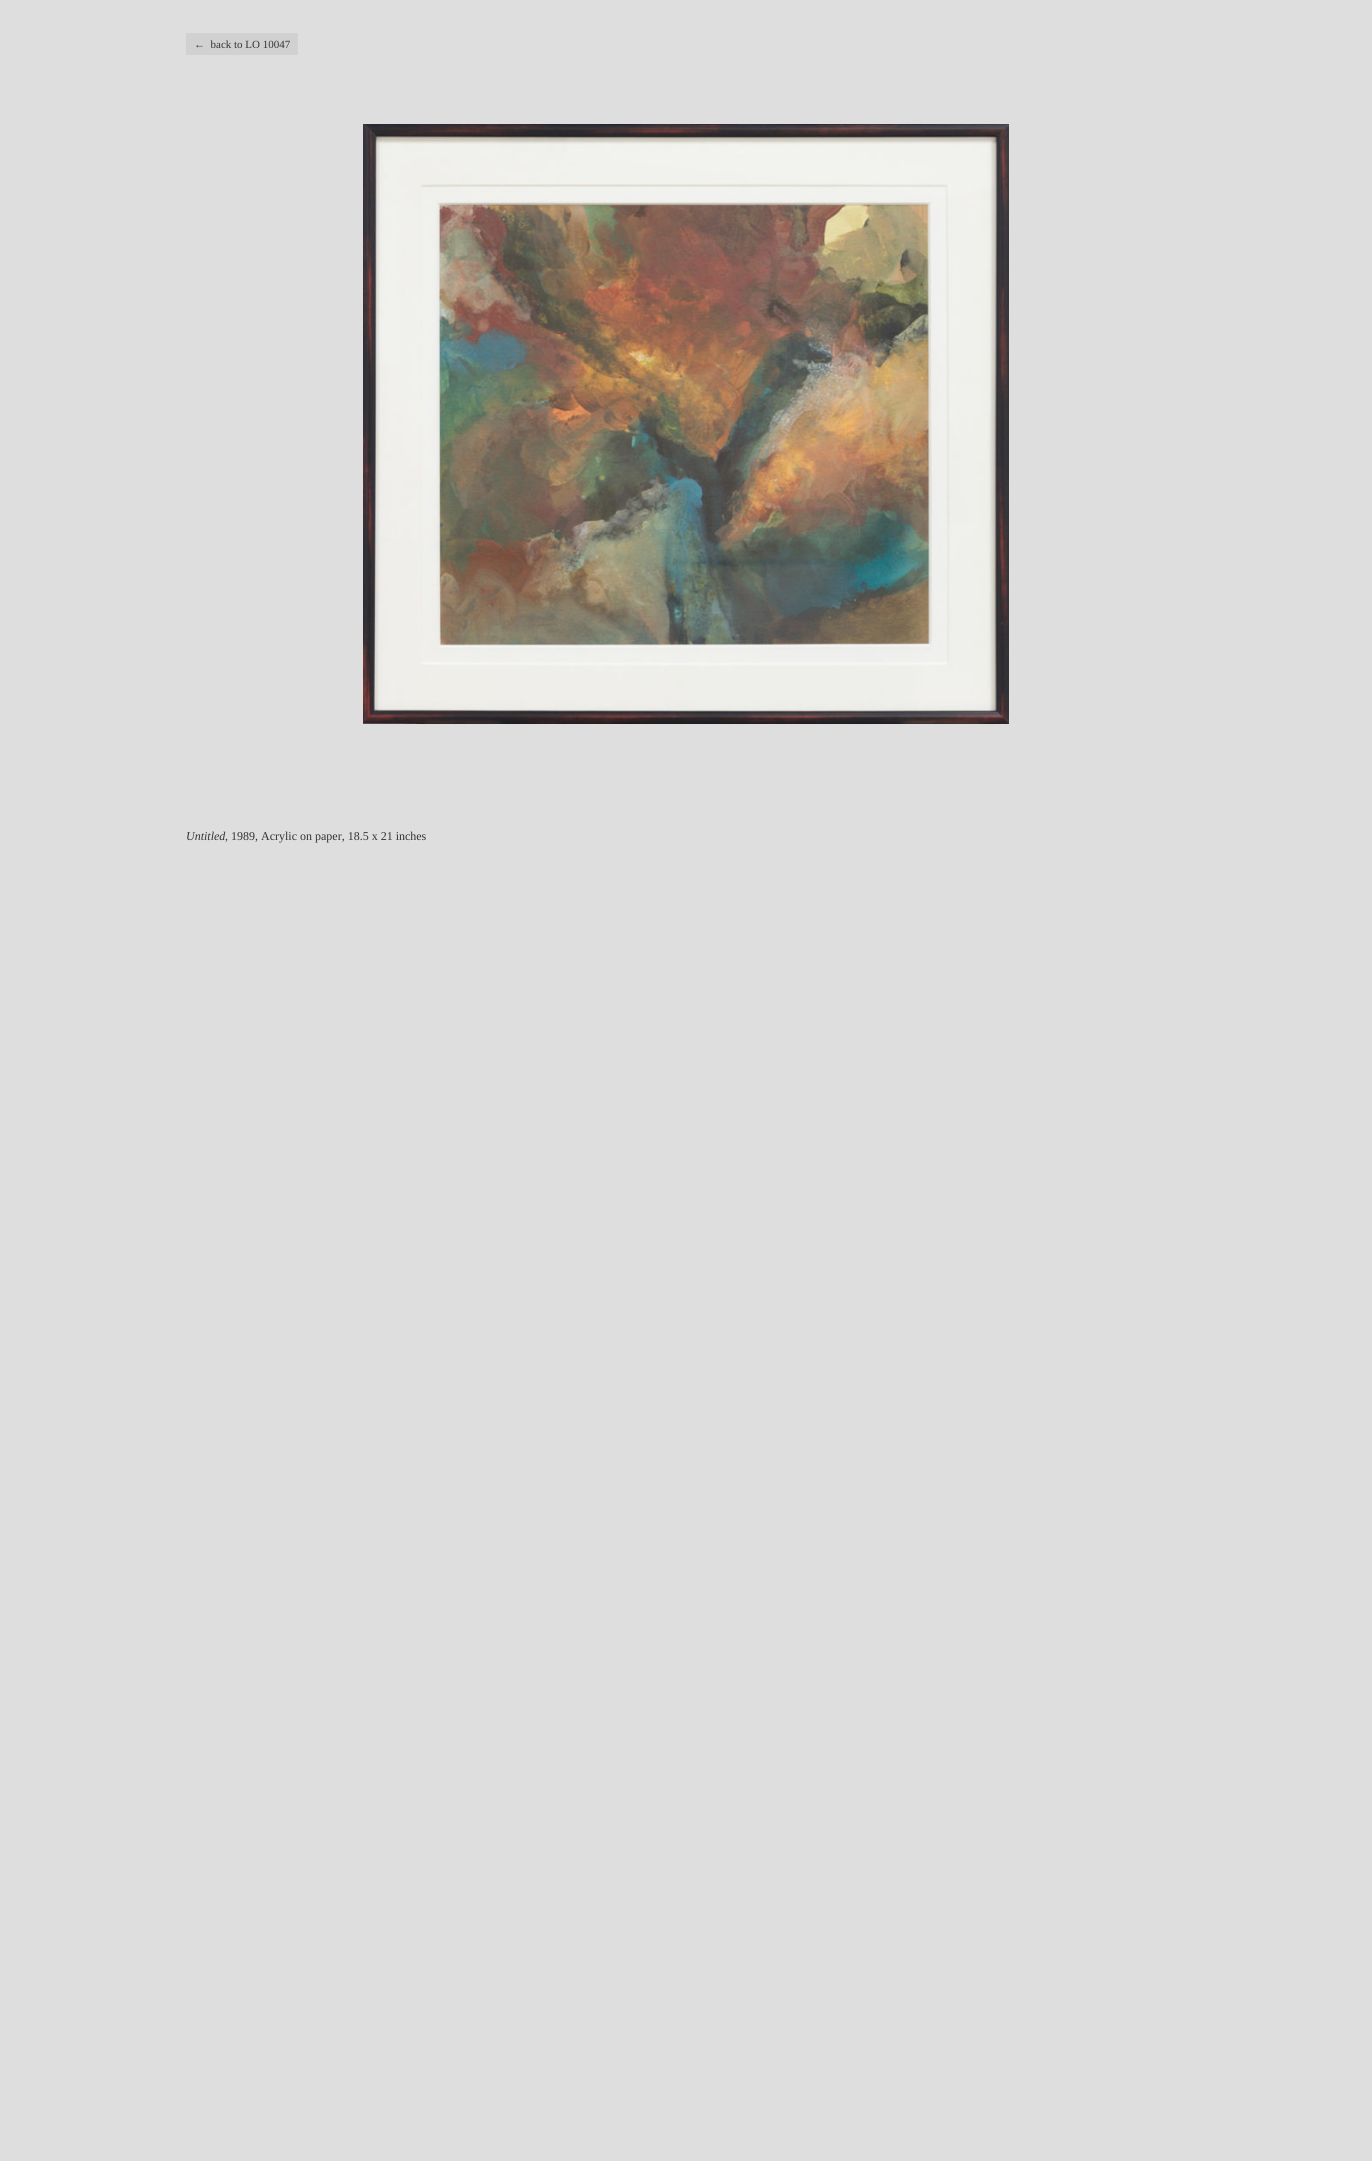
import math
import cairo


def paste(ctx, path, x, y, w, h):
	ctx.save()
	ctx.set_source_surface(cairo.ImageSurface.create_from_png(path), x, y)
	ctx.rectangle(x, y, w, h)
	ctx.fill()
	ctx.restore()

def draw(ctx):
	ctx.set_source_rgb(0.871, 0.871, 0.871)
	ctx.paint()
	ctx.set_source_rgb(0.82, 0.82, 0.82)
	ctx.rectangle(186, 33, 112, 22)
	ctx.fill()
	ctx.select_font_face('Liberation Serif')
	ctx.set_font_size(11)
	ctx.set_source_rgb(0.2, 0.2, 0.2)
	ctx.move_to(194, 48)
	ctx.show_text('←  back to LO 10047')
	paste(ctx, 'media/1.png', 363, 124, 646, 600)
	ctx.select_font_face('Liberation Serif', cairo.FONT_SLANT_ITALIC)
	ctx.set_font_size(12)
	ctx.move_to(186, 840)
	ctx.show_text('Untitled')
	ctx.select_font_face('Liberation Serif')
	ctx.move_to(225, 840)
	ctx.show_text(', 1989, Acrylic on paper, 18.5 x 21 inches')


surface = cairo.ImageSurface(cairo.FORMAT_RGB24, 1372, 2161)
ctx = cairo.Context(surface)
options = cairo.FontOptions()
options.set_hint_metrics(cairo.HINT_METRICS_OFF)
options.set_hint_style(cairo.HINT_STYLE_NONE)
ctx.set_font_options(options)
ctx.set_miter_limit(4)
draw(ctx)
surface.write_to_png('image.png')
